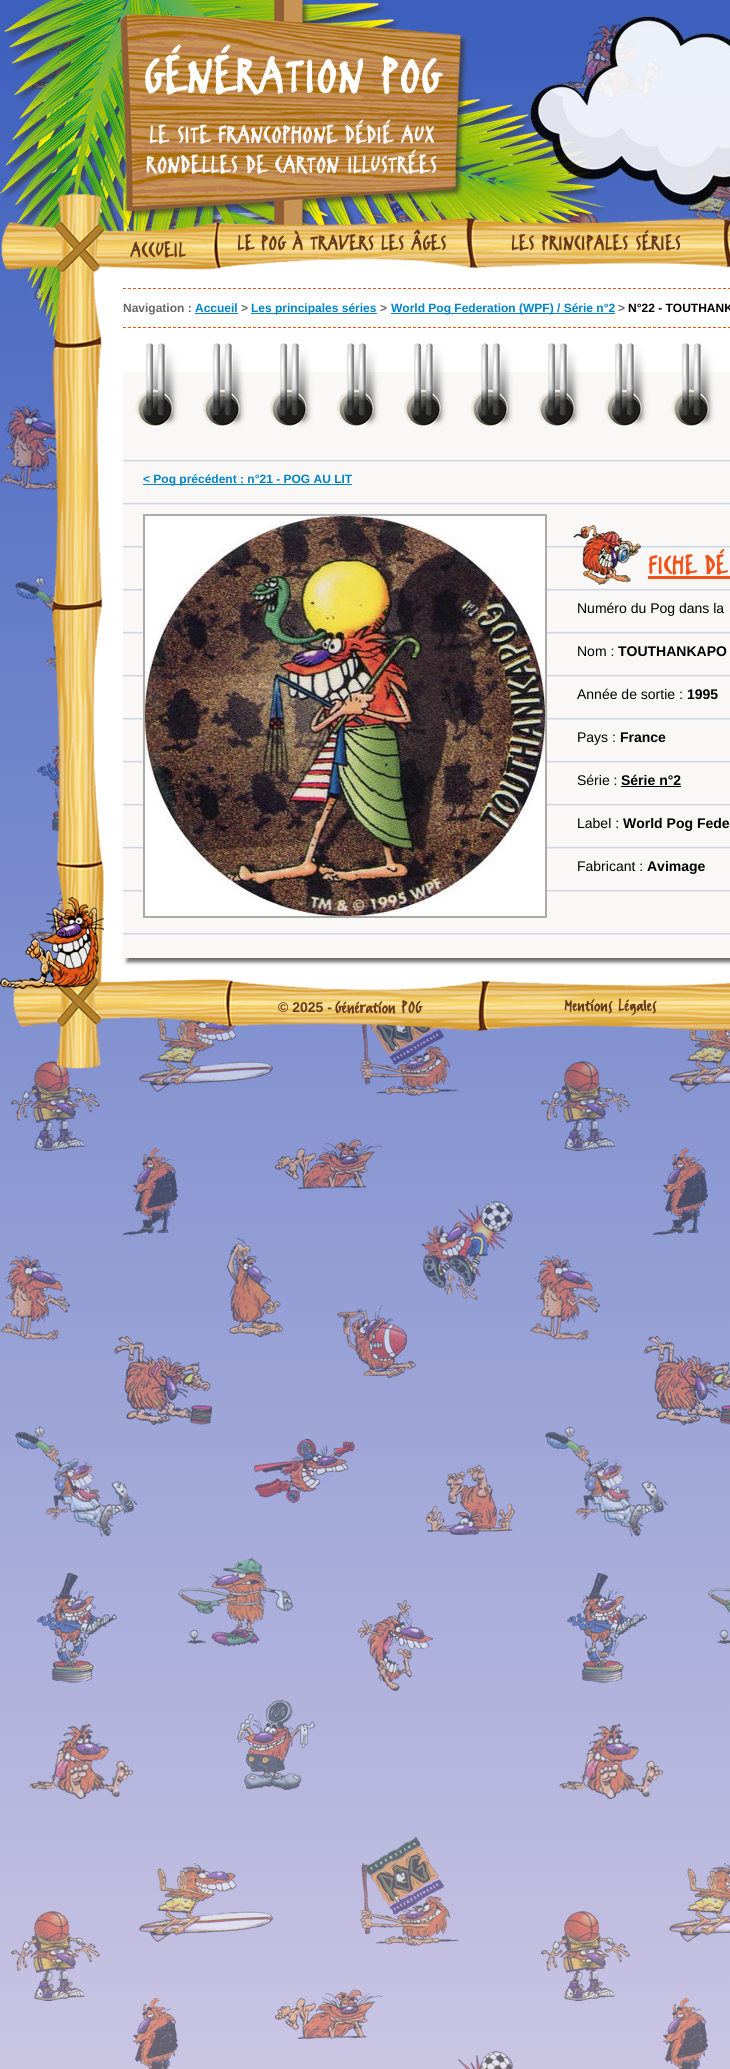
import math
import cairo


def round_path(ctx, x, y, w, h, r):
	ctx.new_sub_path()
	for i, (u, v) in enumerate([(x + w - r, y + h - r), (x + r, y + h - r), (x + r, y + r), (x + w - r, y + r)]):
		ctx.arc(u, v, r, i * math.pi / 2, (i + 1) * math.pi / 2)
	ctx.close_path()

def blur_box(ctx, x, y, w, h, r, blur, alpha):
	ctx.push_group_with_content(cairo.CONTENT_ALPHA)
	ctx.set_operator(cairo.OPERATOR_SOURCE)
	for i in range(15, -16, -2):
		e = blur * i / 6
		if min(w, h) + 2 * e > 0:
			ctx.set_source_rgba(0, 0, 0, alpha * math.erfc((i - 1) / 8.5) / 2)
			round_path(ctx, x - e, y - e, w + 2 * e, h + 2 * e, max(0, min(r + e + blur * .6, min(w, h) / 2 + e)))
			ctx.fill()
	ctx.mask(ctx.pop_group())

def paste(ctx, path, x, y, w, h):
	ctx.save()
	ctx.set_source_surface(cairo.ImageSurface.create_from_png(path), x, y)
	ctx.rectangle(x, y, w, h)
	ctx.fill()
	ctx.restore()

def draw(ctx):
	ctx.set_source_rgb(1, 1, 1)
	ctx.paint()
	paste(ctx, 'media/1.png', 0, 0, 730, 2069)
	paste(ctx, 'media/2.png', 0, 0, 730, 341)
	ctx.select_font_face('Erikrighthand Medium')
	ctx.set_font_size(58)
	ctx.set_source_rgb(1, 1, 1)
	ctx.move_to(144, 93)
	ctx.show_text('GÉNÉRATION POG')
	ctx.set_font_size(28)
	ctx.set_source_rgb(0.965, 0.965, 0.965)
	ctx.move_to(149, 143)
	ctx.show_text('LE SITE FRANCOPHONE DÉDIÉ AUX')
	ctx.move_to(146, 173)
	ctx.show_text('RONDELLES DE CARTON ILLUSTRÉES')
	paste(ctx, 'media/4.png', 51, 257, 679, 734)
	paste(ctx, 'media/3.png', 1, 193, 729, 80)
	ctx.set_font_size(24)
	ctx.set_source_rgb(0.408, 0.22, 0.102)
	for x, y, s in [
		(130, 257, 'ACCUEIL'),
		(237, 250, 'LE POG À TRAVERS LES ÂGES'),
		(511, 250, 'LES PRINCIPALES SÉRIES'),
	]:
		ctx.move_to(x, y)
		ctx.show_text(s)
	ctx.new_path()
	ctx.move_to(123, 288.5)
	ctx.line_to(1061, 288.5)
	ctx.set_source_rgb(0.953, 0.318, 0.086)
	ctx.set_line_width(1)
	ctx.set_dash([3, 2])
	ctx.stroke()
	ctx.new_path()
	ctx.move_to(123, 327.5)
	ctx.line_to(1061, 327.5)
	ctx.stroke()
	ctx.select_font_face('Liberation Sans', cairo.FONT_SLANT_NORMAL, cairo.FONT_WEIGHT_BOLD)
	ctx.set_font_size(12)
	ctx.set_source_rgb(0.4, 0.4, 0.4)
	ctx.move_to(123, 312)
	ctx.show_text('Navigation :')
	ctx.set_source_rgb(0, 0.518, 0.784)
	ctx.move_to(195, 312)
	ctx.show_text('Accueil')
	ctx.rectangle(195, 313, 43, 1)
	ctx.fill()
	ctx.set_source_rgb(0.4, 0.4, 0.4)
	ctx.move_to(241, 312)
	ctx.show_text('>')
	ctx.set_source_rgb(0, 0.518, 0.784)
	ctx.rectangle(251, 313, 126, 1)
	ctx.fill()
	ctx.move_to(251, 312)
	ctx.show_text('Les principales séries')
	ctx.set_source_rgb(0.4, 0.4, 0.4)
	ctx.move_to(380, 312)
	ctx.show_text('>')
	ctx.set_source_rgb(0, 0.518, 0.784)
	ctx.rectangle(391, 313, 224, 1)
	ctx.fill()
	ctx.move_to(391, 312)
	ctx.show_text('World Pog Federation (WPF) / Série n°2')
	ctx.set_source_rgb(0.4, 0.4, 0.4)
	ctx.move_to(618, 312)
	ctx.show_text('>')
	ctx.set_source_rgb(0, 0, 0)
	ctx.move_to(628, 312)
	ctx.show_text('N°22 - TOUTHANK')
	paste(ctx, 'media/5.png', 123, 343, 607, 30)
	ctx.set_source_rgb(0.4, 0.4, 0.4)
	blur_box(ctx, 127, 377, 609, 585, 0, 2, 1)
	paste(ctx, 'media/6.png', 123, 427, 607, 531)
	paste(ctx, 'media/7.png', 123, 373, 607, 54)
	ctx.set_source_rgb(0, 0.518, 0.784)
	ctx.rectangle(143, 484, 209, 1)
	ctx.fill()
	ctx.move_to(143, 483)
	ctx.show_text('< Pog précédent : n°21 - POG AU LIT')
	ctx.rectangle(144, 515, 402, 402)
	ctx.set_source_rgb(0.667, 0.667, 0.667)
	ctx.set_line_width(2)
	ctx.set_dash([])
	ctx.stroke()
	paste(ctx, 'media/8.png', 145, 516, 400, 400)
	paste(ctx, 'media/9.png', 573, 525, 68, 60)
	ctx.select_font_face('Erikrighthand Medium')
	ctx.set_font_size(30)
	ctx.set_source_rgb(0.953, 0.318, 0.086)
	ctx.move_to(648, 574)
	ctx.show_text('FICHE DÉ')
	ctx.rectangle(648, 576, 82, 3)
	ctx.fill()
	ctx.select_font_face('Liberation Sans')
	ctx.set_font_size(14)
	ctx.set_source_rgb(0, 0, 0)
	ctx.move_to(577, 613)
	ctx.show_text('Numéro du Pog dans la')
	ctx.move_to(577, 656)
	ctx.show_text('Nom :')
	ctx.select_font_face('Liberation Sans', cairo.FONT_SLANT_NORMAL, cairo.FONT_WEIGHT_BOLD)
	ctx.move_to(618, 656)
	ctx.show_text('TOUTHANKAPO')
	ctx.select_font_face('Liberation Sans')
	ctx.move_to(577, 699)
	ctx.show_text('Année de sortie :')
	ctx.select_font_face('Liberation Sans', cairo.FONT_SLANT_NORMAL, cairo.FONT_WEIGHT_BOLD)
	ctx.move_to(687, 699)
	ctx.show_text('1995')
	ctx.select_font_face('Liberation Sans')
	ctx.move_to(577, 742)
	ctx.show_text('Pays :')
	ctx.select_font_face('Liberation Sans', cairo.FONT_SLANT_NORMAL, cairo.FONT_WEIGHT_BOLD)
	ctx.move_to(620, 742)
	ctx.show_text('France')
	ctx.select_font_face('Liberation Sans')
	ctx.move_to(577, 785)
	ctx.show_text('Série :')
	ctx.select_font_face('Liberation Sans', cairo.FONT_SLANT_NORMAL, cairo.FONT_WEIGHT_BOLD)
	ctx.move_to(621, 785)
	ctx.show_text('Série n°2')
	ctx.rectangle(621, 786, 60, 1)
	ctx.fill()
	ctx.select_font_face('Liberation Sans')
	ctx.move_to(577, 828)
	ctx.show_text('Label :')
	ctx.select_font_face('Liberation Sans', cairo.FONT_SLANT_NORMAL, cairo.FONT_WEIGHT_BOLD)
	ctx.move_to(623, 828)
	ctx.show_text('World Pog Fede')
	ctx.select_font_face('Liberation Sans')
	ctx.move_to(577, 871)
	ctx.show_text('Fabricant :')
	ctx.select_font_face('Liberation Sans', cairo.FONT_SLANT_NORMAL, cairo.FONT_WEIGHT_BOLD)
	ctx.move_to(647, 871)
	ctx.show_text('Avimage')
	paste(ctx, 'media/10.png', 13, 977, 717, 92)
	paste(ctx, 'media/11.png', 0, 897, 104, 92)
	ctx.set_source_rgb(0.408, 0.22, 0.102)
	ctx.move_to(278, 1012)
	ctx.show_text('© 2025 -')
	ctx.select_font_face('Erikrighthand Medium')
	ctx.set_font_size(20)
	ctx.move_to(335, 1013)
	ctx.show_text('Génération POG')
	ctx.move_to(564, 1011)
	ctx.show_text('Mentions Légales')


surface = cairo.ImageSurface(cairo.FORMAT_RGB24, 730, 2069)
ctx = cairo.Context(surface)
options = cairo.FontOptions()
options.set_hint_metrics(cairo.HINT_METRICS_OFF)
options.set_hint_style(cairo.HINT_STYLE_NONE)
ctx.set_font_options(options)
ctx.set_miter_limit(4)
draw(ctx)
surface.write_to_png('image.png')
